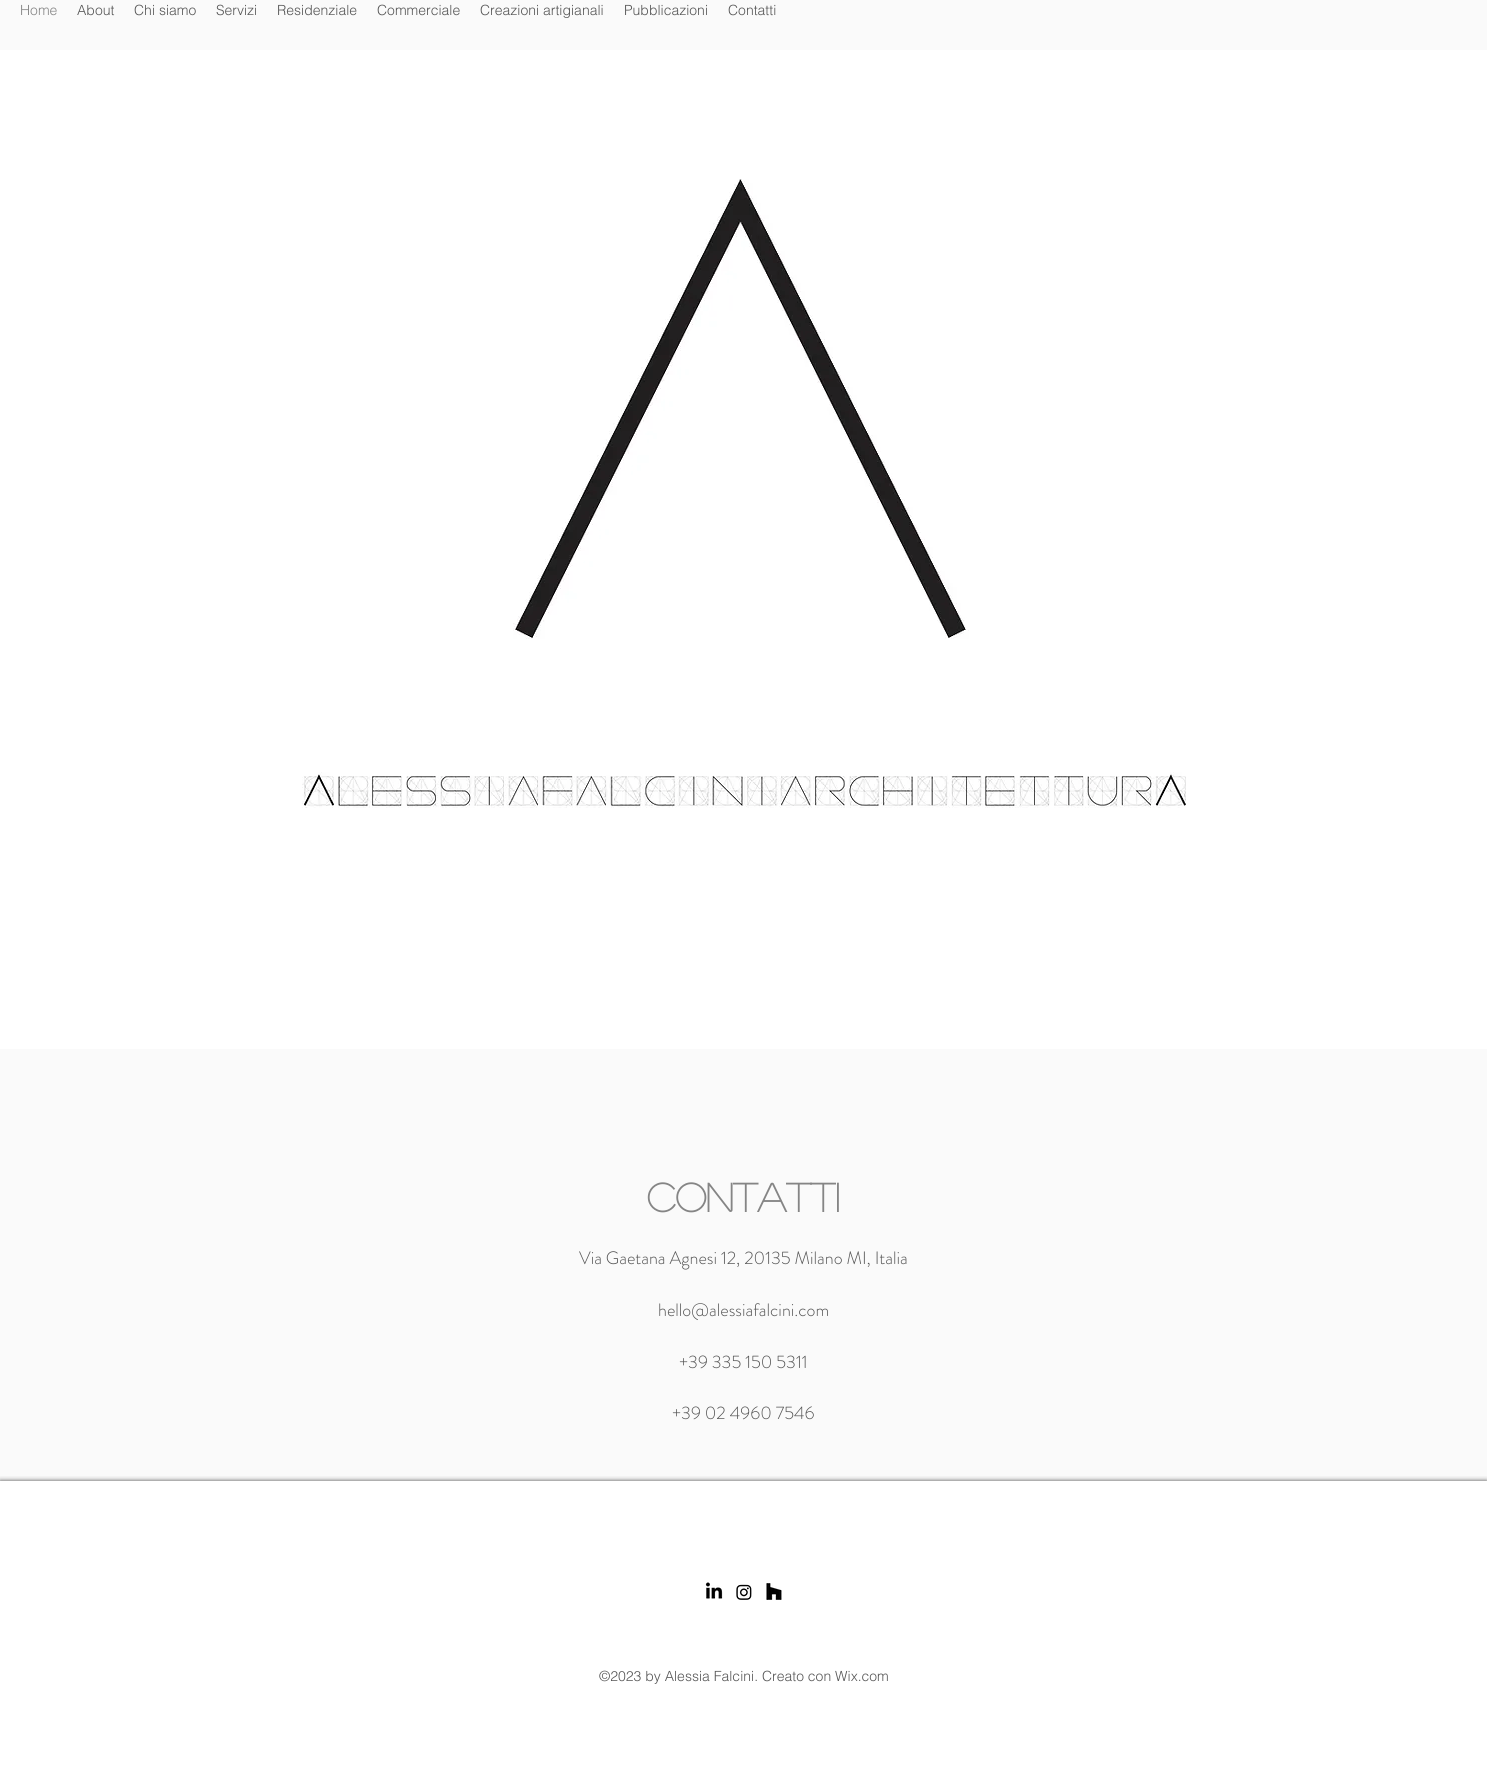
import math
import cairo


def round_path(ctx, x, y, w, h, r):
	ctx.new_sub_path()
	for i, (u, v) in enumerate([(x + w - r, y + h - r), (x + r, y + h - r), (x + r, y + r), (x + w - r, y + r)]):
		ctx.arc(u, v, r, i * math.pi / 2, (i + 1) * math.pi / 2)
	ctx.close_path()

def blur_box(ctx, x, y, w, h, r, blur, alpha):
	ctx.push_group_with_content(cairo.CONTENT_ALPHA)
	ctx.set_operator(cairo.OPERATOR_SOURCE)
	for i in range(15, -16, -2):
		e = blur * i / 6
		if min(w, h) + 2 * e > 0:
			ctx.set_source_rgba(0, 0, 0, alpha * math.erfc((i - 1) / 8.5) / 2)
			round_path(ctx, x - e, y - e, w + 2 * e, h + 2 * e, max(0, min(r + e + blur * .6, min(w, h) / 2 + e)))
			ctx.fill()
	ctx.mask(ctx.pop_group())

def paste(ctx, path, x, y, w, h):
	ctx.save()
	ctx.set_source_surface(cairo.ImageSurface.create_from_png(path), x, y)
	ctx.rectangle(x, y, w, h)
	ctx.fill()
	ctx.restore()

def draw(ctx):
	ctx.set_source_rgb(1, 1, 1)
	ctx.paint()
	ctx.set_source_rgb(0.98, 0.98, 0.98)
	ctx.rectangle(0, 0, 1487, 50)
	ctx.fill()
	ctx.select_font_face('helvetica Light')
	ctx.set_font_size(14)
	ctx.set_source_rgb(0.522, 0.522, 0.522)
	ctx.move_to(20, 15)
	ctx.show_text('Home')
	ctx.set_source_rgb(0.333, 0.333, 0.333)
	for x, y, s in [
		(77, 15, 'About'),
		(134, 15, 'Chi siamo'),
		(216, 15, 'Servizi'),
		(277, 15, 'Residenziale'),
		(377, 15, 'Commerciale'),
		(480, 15, 'Creazioni artigianali'),
		(624, 15, 'Pubblicazioni'),
		(728, 15, 'Contatti'),
	]:
		ctx.move_to(x, y)
		ctx.show_text(s)
	paste(ctx, 'media/1.png', 513, 179, 456, 460)
	paste(ctx, 'media/2.png', 302, 772, 884, 36)
	ctx.set_source_rgb(0.98, 0.98, 0.98)
	ctx.rectangle(0, 1049, 1487, 432)
	ctx.fill()
	ctx.select_font_face('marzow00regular', cairo.FONT_SLANT_NORMAL, cairo.FONT_WEIGHT_BOLD)
	ctx.set_font_size(40)
	ctx.set_source_rgb(0.522, 0.522, 0.522)
	ctx.move_to(647, 1212)
	ctx.show_text('contatti')
	ctx.select_font_face('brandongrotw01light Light')
	ctx.set_font_size(18)
	ctx.set_source_rgb(0.333, 0.333, 0.333)
	for x, y, s in [
		(579, 1264, 'Via Gaetana Agnesi 12, 20135 Milano MI, Italia'),
		(658, 1316, 'hello@alessiafalcini.com'),
		(679, 1368, '+39 335 150 5311'),
		(672, 1419, '+39 02 4960 7546'),
	]:
		ctx.move_to(x, y)
		ctx.show_text(s)
	ctx.save()
	ctx.rectangle(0, 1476, 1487, 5)
	ctx.clip()
	ctx.set_source_rgb(0, 0, 0)
	blur_box(ctx, 0, 1481, 1487, 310, 0, 2.5, 0.7)
	ctx.restore()
	paste(ctx, 'media/3.png', 705, 1582, 18, 17)
	paste(ctx, 'media/4.png', 736, 1584, 16, 16)
	paste(ctx, 'media/5.png', 766, 1583, 16, 17)
	ctx.select_font_face('helvetica Light')
	ctx.set_font_size(14)
	ctx.move_to(599, 1681)
	ctx.show_text('©2023 by Alessia Falcini. Creato con Wix.com')


surface = cairo.ImageSurface(cairo.FORMAT_RGB24, 1487, 1783)
ctx = cairo.Context(surface)
options = cairo.FontOptions()
options.set_hint_metrics(cairo.HINT_METRICS_OFF)
options.set_hint_style(cairo.HINT_STYLE_NONE)
ctx.set_font_options(options)
ctx.set_miter_limit(4)
draw(ctx)
surface.write_to_png('image.png')
